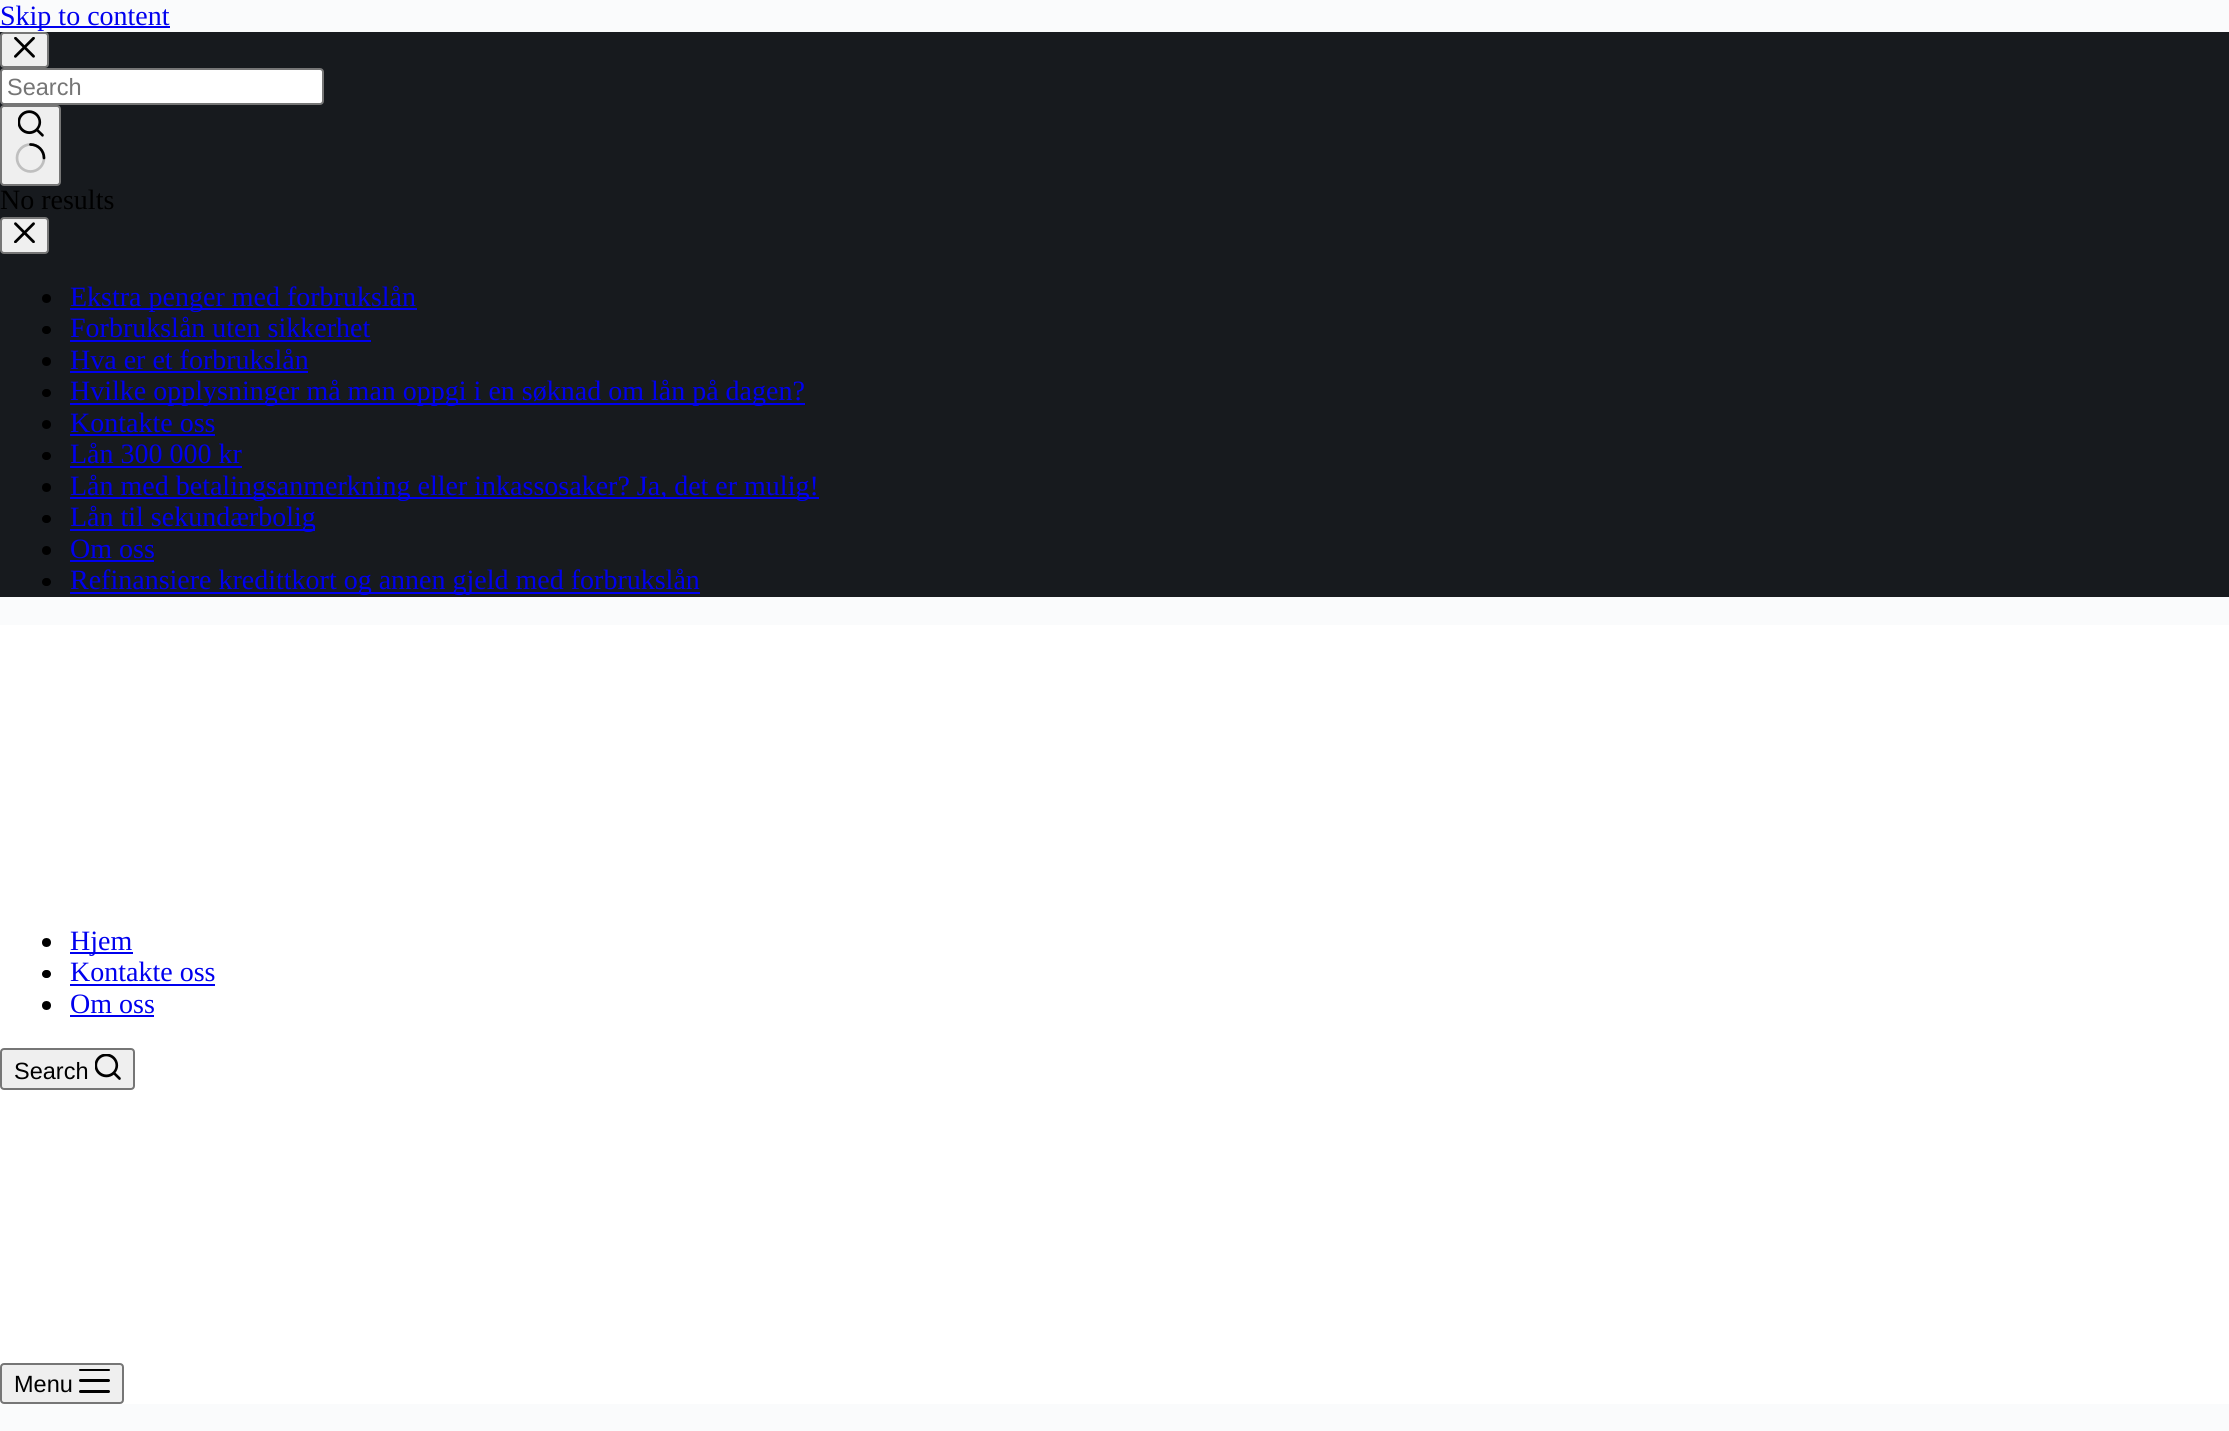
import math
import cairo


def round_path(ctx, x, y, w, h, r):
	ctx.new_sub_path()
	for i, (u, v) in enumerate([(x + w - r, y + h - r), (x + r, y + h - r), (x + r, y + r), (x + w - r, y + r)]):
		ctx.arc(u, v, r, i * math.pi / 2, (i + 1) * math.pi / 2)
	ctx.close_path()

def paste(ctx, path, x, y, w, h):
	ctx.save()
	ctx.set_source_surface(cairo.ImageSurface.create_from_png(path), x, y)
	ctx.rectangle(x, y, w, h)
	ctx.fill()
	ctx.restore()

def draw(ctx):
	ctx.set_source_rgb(0.98, 0.984, 0.988)
	ctx.paint()
	ctx.set_source_rgb(0, 0, 0.933)
	ctx.rectangle(0, 26, 170, 2)
	ctx.fill()
	ctx.select_font_face('Liberation Serif')
	ctx.set_font_size(28)
	ctx.move_to(0, 25)
	ctx.show_text('Skip to content')
	ctx.set_source_rgb(0.09, 0.102, 0.118)
	ctx.rectangle(0, 32, 2229, 565)
	ctx.fill()
	ctx.set_source_rgb(0.937, 0.937, 0.937)
	round_path(ctx, 1, 33, 47, 34, 3)
	ctx.fill_preserve()
	ctx.set_source_rgb(0.463, 0.463, 0.463)
	ctx.stroke()
	paste(ctx, 'media/1.png', 14, 37, 21, 21)
	ctx.set_source_rgb(1, 1, 1)
	round_path(ctx, 1, 69, 322, 35, 3)
	ctx.fill_preserve()
	ctx.set_source_rgb(0.463, 0.463, 0.463)
	ctx.stroke()
	ctx.select_font_face('Liberation Sans')
	ctx.set_font_size(23.5)
	ctx.set_source_rgb(0.459, 0.459, 0.459)
	ctx.move_to(7, 95)
	ctx.show_text('Search')
	ctx.set_source_rgb(0.937, 0.937, 0.937)
	round_path(ctx, 1, 106, 59, 79, 3)
	ctx.fill_preserve()
	ctx.set_source_rgb(0.463, 0.463, 0.463)
	ctx.stroke()
	paste(ctx, 'media/2.png', 18, 110, 26, 27)
	ctx.arc(30.5, 158, 13.5, 0, 2 * math.pi)
	ctx.set_source_rgb(0.749, 0.749, 0.749)
	ctx.set_line_width(2.7)
	ctx.stroke()
	ctx.new_path()
	ctx.move_to(30.5, 144.5)
	ctx.curve_to(38, 144.5, 44, 150.5, 44, 158)
	ctx.set_source_rgb(0, 0, 0)
	ctx.set_line_cap(cairo.LINE_CAP_ROUND)
	ctx.stroke()
	ctx.select_font_face('Liberation Serif')
	ctx.set_font_size(28)
	ctx.move_to(0, 209)
	ctx.show_text('No results')
	ctx.set_source_rgb(0.937, 0.937, 0.937)
	round_path(ctx, 1, 218, 47, 35, 3)
	ctx.fill_preserve()
	ctx.set_source_rgb(0.463, 0.463, 0.463)
	ctx.set_line_width(2)
	ctx.set_line_cap(cairo.LINE_CAP_BUTT)
	ctx.stroke()
	paste(ctx, 'media/3.png', 14, 222, 21, 21)
	ctx.set_source_rgb(0, 0, 0)
	ctx.arc(46.5, 298.5, 4.5, 0, 2 * math.pi)
	ctx.fill()
	ctx.set_source_rgb(0, 0, 0.933)
	ctx.rectangle(70, 308, 347, 2)
	ctx.fill()
	ctx.move_to(70, 306)
	ctx.show_text('Ekstra penger med forbrukslån')
	ctx.set_source_rgb(0, 0, 0)
	round_path(ctx, 42, 326, 9, 8, 4)
	ctx.fill()
	ctx.set_source_rgb(0, 0, 0.933)
	ctx.move_to(70, 337)
	ctx.show_text('Forbrukslån uten sikkerhet')
	ctx.rectangle(70, 340, 301, 2)
	ctx.fill()
	ctx.set_source_rgb(0, 0, 0)
	ctx.arc(46.5, 361.5, 4.5, 0, 2 * math.pi)
	ctx.fill()
	ctx.set_source_rgb(0, 0, 0.933)
	ctx.move_to(70, 369)
	ctx.show_text('Hva er et forbrukslån')
	ctx.rectangle(70, 371, 238, 2)
	ctx.fill()
	ctx.set_source_rgb(0, 0, 0)
	round_path(ctx, 42, 389, 9, 8, 4)
	ctx.fill()
	ctx.set_source_rgb(0, 0, 0.933)
	ctx.rectangle(70, 403, 735, 2)
	ctx.fill()
	ctx.move_to(70, 400)
	ctx.show_text('Hvilke opplysninger må man oppgi i en søknad om lån på dagen?')
	ctx.set_source_rgb(0, 0, 0)
	ctx.new_path()
	ctx.arc(46.5, 424.5, 4.5, 0, 2 * math.pi)
	ctx.fill()
	ctx.set_source_rgb(0, 0, 0.933)
	ctx.move_to(70, 432)
	ctx.show_text('Kontakte oss')
	ctx.rectangle(70, 434, 145, 2)
	ctx.fill()
	ctx.set_source_rgb(0, 0, 0)
	round_path(ctx, 42, 452, 9, 8, 4)
	ctx.fill()
	ctx.set_source_rgb(0, 0, 0.933)
	ctx.move_to(70, 463)
	ctx.show_text('Lån 300 000 kr')
	ctx.rectangle(70, 466, 172, 2)
	ctx.fill()
	ctx.set_source_rgb(0, 0, 0)
	ctx.arc(46.5, 487.5, 4.5, 0, 2 * math.pi)
	ctx.fill()
	ctx.set_source_rgb(0, 0, 0.933)
	ctx.rectangle(70, 497, 749, 2)
	ctx.fill()
	ctx.move_to(70, 495)
	ctx.show_text('Lån med betalingsanmerkning eller inkassosaker? Ja, det er mulig!')
	ctx.set_source_rgb(0, 0, 0)
	round_path(ctx, 42, 515, 9, 8, 4)
	ctx.fill()
	ctx.set_source_rgb(0, 0, 0.933)
	ctx.rectangle(70, 529, 245, 2)
	ctx.fill()
	ctx.move_to(70, 526)
	ctx.show_text('Lån til sekundærbolig')
	ctx.set_source_rgb(0, 0, 0)
	ctx.new_path()
	ctx.arc(46.5, 550.5, 4.5, 0, 2 * math.pi)
	ctx.fill()
	ctx.set_source_rgb(0, 0, 0.933)
	ctx.move_to(70, 558)
	ctx.show_text('Om oss')
	ctx.rectangle(70, 560, 84, 2)
	ctx.fill()
	ctx.set_source_rgb(0, 0, 0)
	round_path(ctx, 42, 578, 9, 8, 4)
	ctx.fill()
	ctx.set_source_rgb(0, 0, 0.933)
	ctx.rectangle(70, 592, 630, 2)
	ctx.fill()
	ctx.move_to(70, 589)
	ctx.show_text('Refinansiere kredittkort og annen gjeld med forbrukslån')
	ctx.set_source_rgb(1, 1, 1)
	ctx.rectangle(0, 625, 2229, 779)
	ctx.fill()
	ctx.set_source_rgb(0, 0, 0)
	ctx.arc(46.5, 942.5, 4.5, 0, 2 * math.pi)
	ctx.fill()
	ctx.set_source_rgb(0, 0, 0.933)
	ctx.rectangle(70, 952, 63, 2)
	ctx.fill()
	ctx.move_to(70, 950)
	ctx.show_text('Hjem')
	ctx.set_source_rgb(0, 0, 0)
	round_path(ctx, 42, 970, 9, 8, 4)
	ctx.fill()
	ctx.set_source_rgb(0, 0, 0.933)
	ctx.move_to(70, 981)
	ctx.show_text('Kontakte oss')
	ctx.rectangle(70, 984, 145, 2)
	ctx.fill()
	ctx.set_source_rgb(0, 0, 0)
	ctx.arc(46.5, 1005.5, 4.5, 0, 2 * math.pi)
	ctx.fill()
	ctx.set_source_rgb(0, 0, 0.933)
	ctx.move_to(70, 1013)
	ctx.show_text('Om oss')
	ctx.rectangle(70, 1015, 84, 2)
	ctx.fill()
	ctx.set_source_rgb(0.937, 0.937, 0.937)
	round_path(ctx, 1, 1049, 133, 40, 3)
	ctx.fill_preserve()
	ctx.set_source_rgb(0.463, 0.463, 0.463)
	ctx.stroke()
	ctx.select_font_face('Liberation Sans')
	ctx.set_font_size(23.5)
	ctx.set_source_rgb(0, 0, 0)
	ctx.move_to(14, 1079)
	ctx.show_text('Search')
	paste(ctx, 'media/4.png', 95, 1054, 26, 26)
	ctx.set_source_rgb(0.937, 0.937, 0.937)
	round_path(ctx, 1, 1364, 122, 39, 3)
	ctx.fill_preserve()
	ctx.set_source_rgb(0.463, 0.463, 0.463)
	ctx.stroke()
	ctx.set_source_rgb(0, 0, 0)
	round_path(ctx, 79, 1369, 31, 2, 1)
	ctx.fill()
	ctx.move_to(14, 1392)
	ctx.show_text('Menu')
	round_path(ctx, 79, 1379, 31, 3, 1.5)
	ctx.fill()
	round_path(ctx, 79, 1390, 31, 3, 1.5)
	ctx.fill()


surface = cairo.ImageSurface(cairo.FORMAT_RGB24, 2229, 1431)
ctx = cairo.Context(surface)
options = cairo.FontOptions()
options.set_hint_metrics(cairo.HINT_METRICS_OFF)
options.set_hint_style(cairo.HINT_STYLE_NONE)
ctx.set_font_options(options)
ctx.set_miter_limit(4)
draw(ctx)
surface.write_to_png('image.png')
